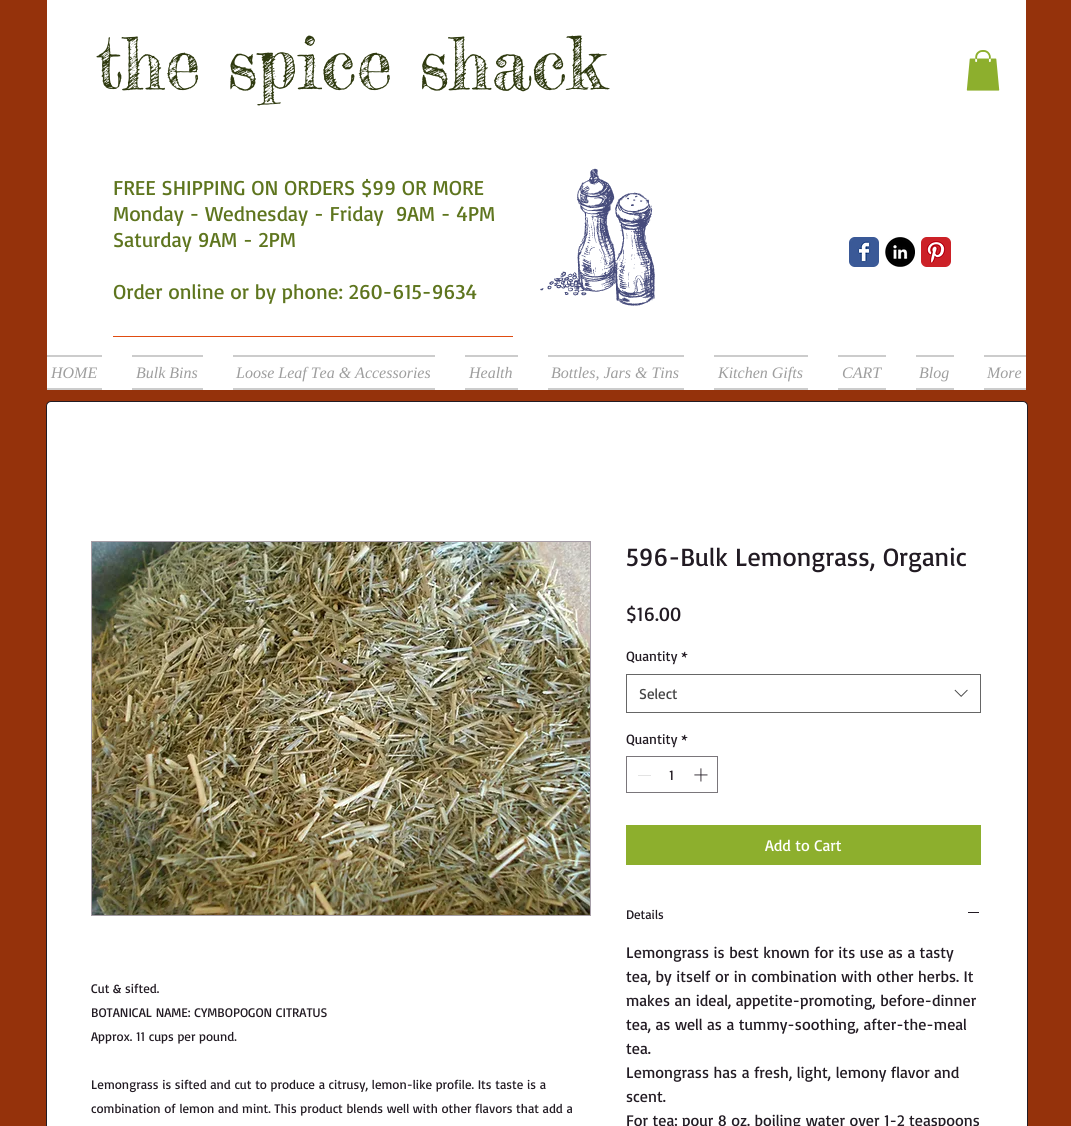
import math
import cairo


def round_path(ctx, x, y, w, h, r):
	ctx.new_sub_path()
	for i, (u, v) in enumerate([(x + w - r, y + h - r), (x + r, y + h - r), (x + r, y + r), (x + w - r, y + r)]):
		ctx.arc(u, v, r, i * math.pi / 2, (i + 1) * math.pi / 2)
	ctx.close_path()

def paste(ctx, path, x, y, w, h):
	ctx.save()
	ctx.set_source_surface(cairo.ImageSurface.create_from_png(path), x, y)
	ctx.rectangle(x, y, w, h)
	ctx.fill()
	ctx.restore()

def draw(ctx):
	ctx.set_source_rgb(0.584, 0.196, 0.043)
	ctx.paint()
	ctx.set_source_rgb(1, 1, 1)
	ctx.rectangle(47, 0, 979, 390)
	ctx.fill()
	ctx.select_font_face('Fredericka the Great')
	ctx.set_font_size(72)
	ctx.set_source_rgb(0.184, 0.227, 0.059)
	ctx.move_to(96, 89)
	ctx.show_text('the spice shack')
	paste(ctx, 'media/1.png', 966, 50, 34, 41)
	ctx.select_font_face('Basic')
	ctx.set_font_size(21)
	ctx.set_source_rgb(0.369, 0.459, 0.118)
	for x, y, s in [
		(113, 195, 'FREE SHIPPING ON ORDERS $99 OR MORE'),
		(113, 221, 'Monday - Wednesday - Friday  9AM - 4PM'),
		(113, 247, 'Saturday 9AM - 2PM'),
		(113, 299, 'Order online or by phone: 260-615-9634'),
	]:
		ctx.move_to(x, y)
		ctx.show_text(s)
	paste(ctx, 'media/2.png', 540, 168, 115, 138)
	paste(ctx, 'media/3.png', 849, 237, 30, 30)
	paste(ctx, 'media/4.png', 885, 237, 30, 30)
	paste(ctx, 'media/5.png', 921, 237, 30, 30)
	ctx.set_source_rgb(0.878, 0.298, 0.067)
	ctx.rectangle(113, 336, 400, 1)
	ctx.fill()
	ctx.set_source_rgb(0.8, 0.8, 0.8)
	ctx.rectangle(47, 355, 55, 2)
	ctx.rectangle(47, 388, 55, 2)
	ctx.fill()
	ctx.select_font_face('Liberation Serif', cairo.FONT_SLANT_ITALIC)
	ctx.set_font_size(16)
	ctx.set_source_rgb(0.62, 0.62, 0.62)
	ctx.move_to(51, 378)
	ctx.show_text('HOME')
	ctx.set_source_rgb(0.8, 0.8, 0.8)
	ctx.rectangle(132, 355, 71, 2)
	ctx.fill()
	ctx.rectangle(132, 388, 71, 2)
	ctx.fill()
	ctx.set_source_rgb(0.62, 0.62, 0.62)
	ctx.move_to(136, 378)
	ctx.show_text('Bulk Bins')
	ctx.set_source_rgb(0.8, 0.8, 0.8)
	ctx.rectangle(233, 355, 202, 2)
	ctx.fill()
	ctx.rectangle(233, 388, 202, 2)
	ctx.fill()
	ctx.set_source_rgb(0.62, 0.62, 0.62)
	ctx.move_to(236, 378)
	ctx.show_text('Loose Leaf Tea & Accessories')
	ctx.set_source_rgb(0.8, 0.8, 0.8)
	ctx.rectangle(465, 355, 53, 2)
	ctx.fill()
	ctx.rectangle(465, 388, 53, 2)
	ctx.fill()
	ctx.set_source_rgb(0.62, 0.62, 0.62)
	ctx.move_to(469, 378)
	ctx.show_text('Health')
	ctx.set_source_rgb(0.8, 0.8, 0.8)
	ctx.rectangle(548, 355, 136, 2)
	ctx.fill()
	ctx.rectangle(548, 388, 136, 2)
	ctx.fill()
	ctx.set_source_rgb(0.62, 0.62, 0.62)
	ctx.move_to(551, 378)
	ctx.show_text('Bottles, Jars & Tins')
	ctx.set_source_rgb(0.8, 0.8, 0.8)
	ctx.rectangle(714, 355, 94, 2)
	ctx.fill()
	ctx.rectangle(714, 388, 94, 2)
	ctx.fill()
	ctx.set_source_rgb(0.62, 0.62, 0.62)
	ctx.move_to(718, 378)
	ctx.show_text('Kitchen Gifts')
	ctx.set_source_rgb(0.8, 0.8, 0.8)
	ctx.rectangle(838, 355, 48, 2)
	ctx.fill()
	ctx.rectangle(838, 388, 48, 2)
	ctx.fill()
	ctx.set_source_rgb(0.62, 0.62, 0.62)
	ctx.move_to(842, 378)
	ctx.show_text('CART')
	ctx.set_source_rgb(0.8, 0.8, 0.8)
	ctx.rectangle(916, 355, 38, 2)
	ctx.fill()
	ctx.rectangle(916, 388, 38, 2)
	ctx.fill()
	ctx.set_source_rgb(0.62, 0.62, 0.62)
	ctx.move_to(919, 378)
	ctx.show_text('Blog')
	ctx.set_source_rgb(0.8, 0.8, 0.8)
	ctx.rectangle(984, 355, 42, 2)
	ctx.fill()
	ctx.rectangle(984, 388, 42, 2)
	ctx.fill()
	ctx.set_source_rgb(0.62, 0.62, 0.62)
	ctx.move_to(987, 378)
	ctx.show_text('More')
	ctx.set_source_rgb(1, 1, 1)
	round_path(ctx, 46.5, 401.5, 981, 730, 4.5)
	ctx.fill_preserve()
	ctx.set_source_rgb(0.133, 0.106, 0.137)
	ctx.set_line_width(1)
	ctx.stroke()
	ctx.rectangle(91.5, 541.5, 499, 374)
	ctx.set_source_rgb(0.651, 0.62, 0.655)
	ctx.stroke()
	paste(ctx, 'media/6.png', 92, 542, 498, 373)
	ctx.select_font_face('Basic')
	ctx.set_font_size(13)
	ctx.set_source_rgb(0.133, 0.106, 0.137)
	for x, y, s in [
		(91, 993, 'Cut & sifted.'),
		(91, 1017, 'BOTANICAL NAME: CYMBOPOGON CITRATUS'),
		(91, 1041, 'Approx. 11 cups per pound.'),
		(91, 1089, 'Lemongrass is sifted and cut to produce a citrusy, lemon-like profile. Its taste is a'),
		(91, 1113, 'combination of lemon and mint. This product blends well with other flavors that add a'),
	]:
		ctx.move_to(x, y)
		ctx.show_text(s)
	ctx.set_font_size(26)
	ctx.move_to(626, 566)
	ctx.show_text('596-Bulk Lemongrass, Organic')
	ctx.set_font_size(20)
	ctx.move_to(626, 621)
	ctx.show_text('$16.00')
	ctx.set_font_size(14)
	ctx.move_to(626, 661)
	ctx.show_text('Quantity *')
	ctx.rectangle(626.5, 674.5, 354, 38)
	ctx.set_source_rgb(0.4, 0.4, 0.4)
	ctx.stroke()
	ctx.set_font_size(15)
	ctx.set_source_rgb(0.267, 0.267, 0.267)
	ctx.move_to(639, 699)
	ctx.show_text('Select')
	paste(ctx, 'media/7.png', 954, 689, 14, 8)
	ctx.set_font_size(14)
	ctx.set_source_rgb(0.133, 0.106, 0.137)
	ctx.move_to(626, 744)
	ctx.show_text('Quantity *')
	ctx.rectangle(626.5, 756.5, 91, 36)
	ctx.set_source_rgb(0.478, 0.463, 0.482)
	ctx.stroke()
	ctx.set_source_rgb(0.89, 0.89, 0.89)
	ctx.rectangle(638, 775, 13, 1)
	ctx.fill()
	ctx.set_source_rgb(0.133, 0.106, 0.137)
	ctx.move_to(669, 780)
	ctx.show_text('1')
	paste(ctx, 'media/8.png', 694, 768, 14, 14)
	ctx.set_source_rgb(0.553, 0.686, 0.176)
	ctx.rectangle(626, 825, 355, 40)
	ctx.fill()
	ctx.set_font_size(16)
	ctx.set_source_rgb(1, 1, 1)
	ctx.move_to(765, 851)
	ctx.show_text('Add to Cart')
	ctx.set_font_size(13)
	ctx.set_source_rgb(0.133, 0.106, 0.137)
	ctx.move_to(626, 919)
	ctx.show_text('Details')
	ctx.rectangle(968, 912, 11, 1)
	ctx.fill()
	ctx.set_font_size(16)
	for x, y, s in [
		(626, 958, 'Lemongrass is best known for its use as a tasty'),
		(626, 982, 'tea, by itself or in combination with other herbs. It'),
		(626, 1006, 'makes an ideal, appetite-promoting, before-dinner'),
		(626, 1030, 'tea, as well as a tummy-soothing, after-the-meal'),
		(626, 1054, 'tea.'),
		(626, 1078, 'Lemongrass has a fresh, light, lemony flavor and'),
		(626, 1102, 'scent.'),
		(626, 1126, 'For tea: pour 8 oz. boiling water over 1-2 teaspoons'),
	]:
		ctx.move_to(x, y)
		ctx.show_text(s)


surface = cairo.ImageSurface(cairo.FORMAT_RGB24, 1071, 1126)
ctx = cairo.Context(surface)
options = cairo.FontOptions()
options.set_hint_metrics(cairo.HINT_METRICS_OFF)
options.set_hint_style(cairo.HINT_STYLE_NONE)
ctx.set_font_options(options)
ctx.set_miter_limit(4)
draw(ctx)
surface.write_to_png('image.png')
